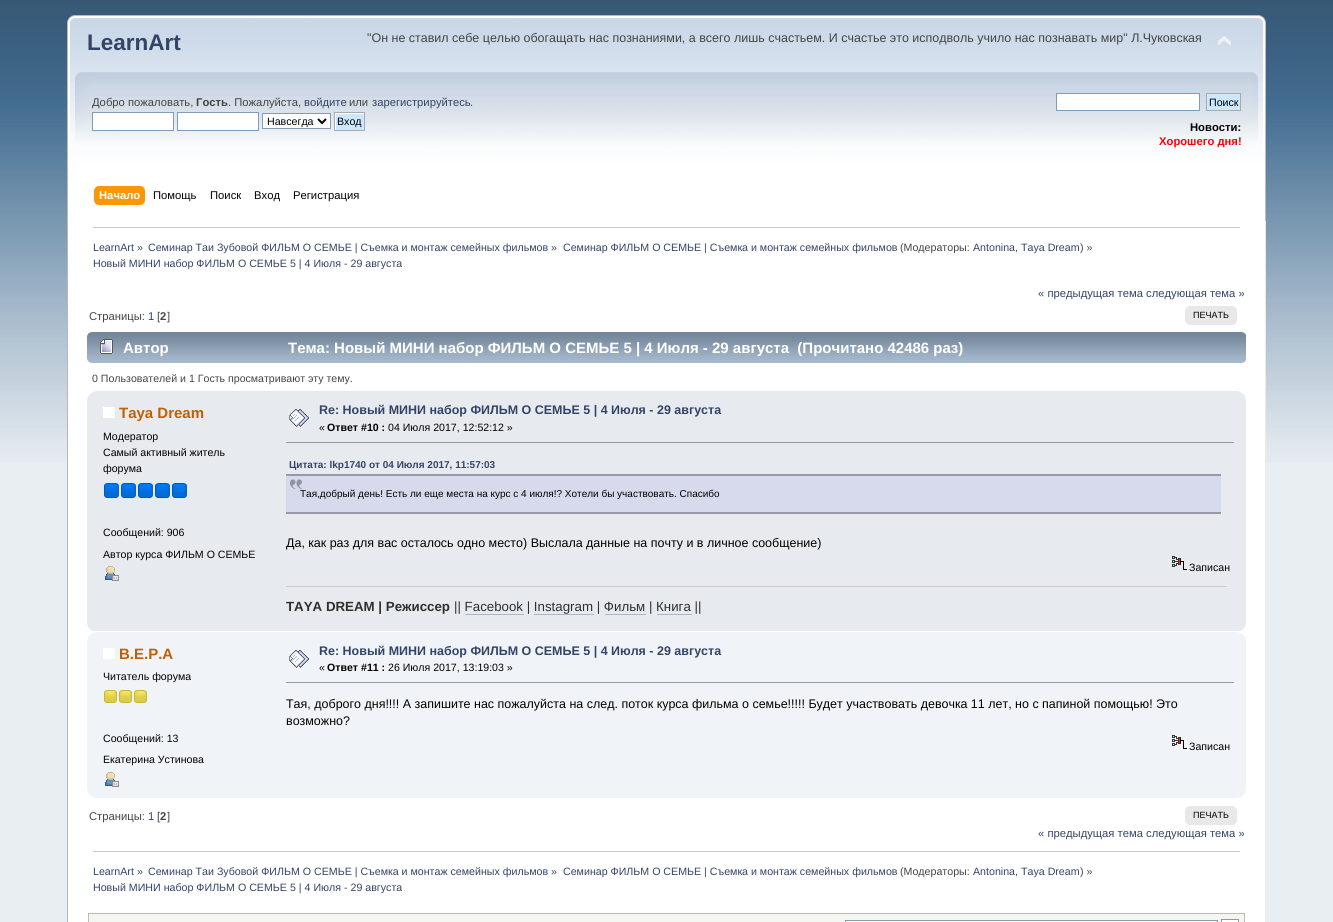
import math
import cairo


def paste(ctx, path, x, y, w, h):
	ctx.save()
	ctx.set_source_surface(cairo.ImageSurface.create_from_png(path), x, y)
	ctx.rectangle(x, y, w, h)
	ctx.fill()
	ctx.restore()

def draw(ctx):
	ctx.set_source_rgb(0.914, 0.933, 0.949)
	ctx.paint()
	paste(ctx, 'media/1.png', 0, 0, 1333, 462)
	paste(ctx, 'media/2.png', 67, 15, 1186, 206)
	paste(ctx, 'media/3.png', 1253, 15, 13, 206)
	ctx.select_font_face('Liberation Sans', cairo.FONT_SLANT_NORMAL, cairo.FONT_WEIGHT_BOLD)
	ctx.set_font_size(22.5)
	ctx.set_source_rgb(0.2, 0.267, 0.4)
	ctx.move_to(87, 50)
	ctx.show_text('LearnArt')
	ctx.select_font_face('Liberation Sans')
	ctx.set_font_size(12.48)
	ctx.set_source_rgb(0.267, 0.267, 0.267)
	ctx.move_to(367, 42)
	ctx.show_text('"Он не ставил себе целью обогащать нас познаниями, а всего лишь счастьем. И счастье это исподволь учило нас познавать мир" Л.Чуковская')
	paste(ctx, 'media/4.png', 1217, 35, 15, 12)
	ctx.save()
	ctx.rectangle(92, 93, 575, 46)
	ctx.clip()
	ctx.set_font_size(11.25)
	ctx.move_to(92, 106)
	ctx.show_text('Добро пожаловать,')
	ctx.restore()
	ctx.select_font_face('Liberation Sans', cairo.FONT_SLANT_NORMAL, cairo.FONT_WEIGHT_BOLD)
	ctx.set_font_size(11.25)
	ctx.move_to(196, 106)
	ctx.show_text('Гость')
	ctx.select_font_face('Liberation Sans')
	ctx.move_to(228, 106)
	ctx.show_text('. Пожалуйста,')
	ctx.set_source_rgb(0.2, 0.267, 0.4)
	ctx.move_to(304, 106)
	ctx.show_text('войдите')
	ctx.set_source_rgb(0.267, 0.267, 0.267)
	ctx.move_to(349, 106)
	ctx.show_text('или')
	ctx.set_source_rgb(0.2, 0.267, 0.4)
	ctx.move_to(372, 106)
	ctx.show_text('зарегистрируйтесь')
	ctx.set_source_rgb(0.267, 0.267, 0.267)
	ctx.move_to(470, 106)
	ctx.show_text('.')
	ctx.set_source_rgb(1, 1, 1)
	ctx.rectangle(92.5, 112.5, 81, 18)
	ctx.fill_preserve()
	ctx.set_source_rgb(0.498, 0.616, 0.725)
	ctx.set_line_width(1)
	ctx.stroke()
	ctx.set_source_rgb(1, 1, 1)
	ctx.rectangle(177.5, 112.5, 81, 18)
	ctx.fill_preserve()
	ctx.set_source_rgb(0.498, 0.616, 0.725)
	ctx.stroke()
	ctx.set_source_rgb(1, 1, 1)
	ctx.rectangle(262.5, 113.5, 68, 15)
	ctx.fill_preserve()
	ctx.set_source_rgb(0.498, 0.616, 0.725)
	ctx.stroke()
	ctx.new_path()
	ctx.move_to(318, 119)
	ctx.line_to(322, 123)
	ctx.line_to(326, 119)
	ctx.set_source_rgb(0, 0, 0)
	ctx.set_line_width(2)
	ctx.stroke()
	ctx.set_font_size(10.65)
	ctx.move_to(267, 125)
	ctx.show_text('Навсегда')
	paste(ctx, 'media/5.png', 335, 113, 29, 17)
	ctx.rectangle(334.5, 112.5, 30, 18)
	ctx.set_source_rgb(0.667, 0.667, 0.667)
	ctx.set_line_width(1)
	ctx.stroke()
	ctx.set_source_rgb(0, 0, 0)
	ctx.move_to(337, 125)
	ctx.show_text('Вход')
	ctx.set_source_rgb(1, 1, 1)
	ctx.rectangle(1056.5, 93.5, 143, 17)
	ctx.fill_preserve()
	ctx.set_source_rgb(0.498, 0.616, 0.725)
	ctx.stroke()
	ctx.set_source_rgb(0.804, 0.906, 1)
	ctx.rectangle(1206.5, 93.5, 34, 17)
	ctx.fill_preserve()
	ctx.set_source_rgb(0.667, 0.667, 0.667)
	ctx.stroke()
	ctx.set_source_rgb(0, 0, 0)
	ctx.move_to(1209, 106)
	ctx.show_text('Поиск')
	ctx.select_font_face('Liberation Sans', cairo.FONT_SLANT_NORMAL, cairo.FONT_WEIGHT_BOLD)
	ctx.set_font_size(11.25)
	ctx.move_to(1190, 131)
	ctx.show_text('Новости:')
	ctx.set_source_rgb(1, 0, 0)
	ctx.move_to(1159, 145)
	ctx.show_text('Хорошего дня!')
	paste(ctx, 'media/6.png', 99, 186, 46, 19)
	paste(ctx, 'media/7.png', 94, 186, 5, 19)
	ctx.set_source_rgb(1, 1, 1)
	ctx.move_to(99, 199)
	ctx.show_text('Начало')
	ctx.select_font_face('Liberation Sans')
	ctx.set_source_rgb(0, 0, 0)
	for x, y, s in [
		(153, 199, 'Помощь'),
		(210, 199, 'Поиск'),
		(254, 199, 'Вход'),
		(293, 199, 'Регистрация'),
	]:
		ctx.move_to(x, y)
		ctx.show_text(s)
	ctx.set_source_rgb(1, 1, 1)
	ctx.rectangle(68, 221, 1197, 701)
	ctx.fill()
	ctx.set_source_rgb(0.718, 0.718, 0.718)
	ctx.rectangle(67, 221, 1, 701)
	ctx.fill()
	ctx.set_source_rgb(0.914, 0.914, 0.914)
	ctx.rectangle(1265, 221, 1, 701)
	ctx.fill()
	ctx.set_source_rgb(0.8, 0.8, 0.8)
	ctx.rectangle(93, 227, 1147, 1)
	ctx.fill()
	ctx.set_font_size(10.65)
	ctx.set_source_rgb(0.2, 0.267, 0.4)
	ctx.move_to(93, 251)
	ctx.show_text('LearnArt')
	ctx.set_source_rgb(0.267, 0.267, 0.267)
	ctx.move_to(137, 251)
	ctx.show_text('»')
	ctx.set_source_rgb(0.2, 0.267, 0.4)
	ctx.move_to(148, 251)
	ctx.show_text('Семинар Таи Зубовой ФИЛЬМ О СЕМЬЕ | Съемка и монтаж семейных фильмов')
	ctx.set_source_rgb(0.267, 0.267, 0.267)
	ctx.move_to(551, 251)
	ctx.show_text('»')
	ctx.set_source_rgb(0.2, 0.267, 0.4)
	ctx.move_to(563, 251)
	ctx.show_text('Семинар ФИЛЬМ О СЕМЬЕ | Съемка и монтаж семейных фильмов')
	ctx.set_source_rgb(0.267, 0.267, 0.267)
	ctx.move_to(900, 251)
	ctx.show_text('(Модераторы:')
	ctx.set_source_rgb(0.2, 0.267, 0.4)
	ctx.move_to(973, 251)
	ctx.show_text('Antonina')
	ctx.move_to(1021, 251)
	ctx.show_text('Taya Dream')
	ctx.set_source_rgb(0.267, 0.267, 0.267)
	ctx.move_to(1080, 251)
	ctx.show_text(') »')
	ctx.move_to(1015, 251)
	ctx.show_text(',')
	ctx.set_source_rgb(0.2, 0.267, 0.4)
	ctx.move_to(93, 267)
	ctx.show_text('Новый МИНИ набор ФИЛЬМ О СЕМЬЕ 5 | 4 Июля - 29 августа')
	ctx.set_font_size(11.25)
	ctx.move_to(1038, 297)
	ctx.show_text('« предыдущая тема следующая тема »')
	ctx.set_source_rgb(0.267, 0.267, 0.267)
	ctx.move_to(89, 320)
	ctx.show_text('Страницы:')
	ctx.set_source_rgb(0.2, 0.267, 0.4)
	ctx.move_to(148, 320)
	ctx.show_text('1')
	ctx.set_source_rgb(0.267, 0.267, 0.267)
	ctx.move_to(157, 320)
	ctx.show_text('[')
	ctx.select_font_face('Liberation Sans', cairo.FONT_SLANT_NORMAL, cairo.FONT_WEIGHT_BOLD)
	ctx.move_to(160, 320)
	ctx.show_text('2')
	ctx.select_font_face('Liberation Sans')
	ctx.move_to(167, 320)
	ctx.show_text(']')
	ctx.set_source_rgb(0.91, 0.91, 0.91)
	ctx.rectangle(1189, 306, 44, 19)
	ctx.fill()
	paste(ctx, 'media/8.png', 1185, 306, 4, 19)
	paste(ctx, 'media/9.png', 1233, 306, 4, 19)
	ctx.set_font_size(9)
	ctx.set_source_rgb(0, 0, 0)
	ctx.move_to(1193, 318)
	ctx.show_text('ПЕЧАТЬ')
	paste(ctx, 'media/10.png', 87, 332, 1155, 31)
	paste(ctx, 'media/11.png', 1242, 332, 4, 31)
	paste(ctx, 'media/12.png', 100, 339, 13, 15)
	ctx.select_font_face('Liberation Sans', cairo.FONT_SLANT_NORMAL, cairo.FONT_WEIGHT_BOLD)
	ctx.set_font_size(15)
	ctx.set_source_rgb(1, 1, 1)
	ctx.move_to(123, 353)
	ctx.show_text('Автор')
	ctx.move_to(288, 353)
	ctx.show_text('Тема: Новый МИНИ набор ФИЛЬМ О СЕМЬЕ 5 | 4 Июля - 29 августа  (Прочитано 42486 раз)')
	ctx.select_font_face('Liberation Sans')
	ctx.set_font_size(10.6)
	ctx.set_source_rgb(0.267, 0.267, 0.267)
	ctx.move_to(92, 382)
	ctx.show_text('0 Пользователей и 1 Гость просматривают эту тему.')
	ctx.set_source_rgb(0.906, 0.918, 0.937)
	ctx.rectangle(87, 391, 1159, 240)
	ctx.fill()
	paste(ctx, 'media/13.png', 87, 391, 9, 9)
	paste(ctx, 'media/14.png', 1238, 391, 8, 8)
	ctx.set_source_rgb(1, 1, 1)
	ctx.rectangle(103, 407, 12, 11)
	ctx.fill()
	ctx.select_font_face('Liberation Sans', cairo.FONT_SLANT_NORMAL, cairo.FONT_WEIGHT_BOLD)
	ctx.set_font_size(15)
	ctx.set_source_rgb(0.753, 0.376, 0.008)
	ctx.move_to(119, 418)
	ctx.show_text('Taya Dream')
	ctx.select_font_face('Liberation Sans')
	ctx.set_font_size(10.6)
	ctx.set_source_rgb(0, 0, 0)
	for x, y, s in [
		(103, 440, 'Модератор'),
		(103, 456, 'Самый активный житель'),
		(103, 472, 'форума'),
	]:
		ctx.move_to(x, y)
		ctx.show_text(s)
	paste(ctx, 'media/15.png', 104, 483, 15, 15)
	paste(ctx, 'media/15.png', 121, 483, 15, 15)
	paste(ctx, 'media/15.png', 138, 483, 15, 15)
	paste(ctx, 'media/15.png', 155, 483, 15, 15)
	paste(ctx, 'media/15.png', 172, 483, 15, 15)
	ctx.move_to(103, 536)
	ctx.show_text('Сообщений: 906')
	ctx.move_to(103, 558)
	ctx.show_text('Автор курса ФИЛЬМ О СЕМЬЕ')
	paste(ctx, 'media/16.png', 105, 566, 14, 15)
	paste(ctx, 'media/17.png', 289, 409, 20, 18)
	ctx.select_font_face('Liberation Sans', cairo.FONT_SLANT_NORMAL, cairo.FONT_WEIGHT_BOLD)
	ctx.set_font_size(12.48)
	ctx.set_source_rgb(0.2, 0.267, 0.4)
	ctx.move_to(319, 414)
	ctx.show_text('Re: Новый МИНИ набор ФИЛЬМ О СЕМЬЕ 5 | 4 Июля - 29 августа')
	ctx.select_font_face('Liberation Sans')
	ctx.set_font_size(10.6)
	ctx.set_source_rgb(0, 0, 0)
	ctx.move_to(319, 431)
	ctx.show_text('«')
	ctx.select_font_face('Liberation Sans', cairo.FONT_SLANT_NORMAL, cairo.FONT_WEIGHT_BOLD)
	ctx.move_to(327, 431)
	ctx.show_text('Ответ #10 :')
	ctx.select_font_face('Liberation Sans')
	ctx.move_to(388, 431)
	ctx.show_text('04 Июля 2017, 12:52:12 »')
	ctx.set_source_rgb(0.6, 0.6, 0.667)
	ctx.rectangle(286, 442, 948, 1)
	ctx.fill()
	ctx.select_font_face('Liberation Sans', cairo.FONT_SLANT_NORMAL, cairo.FONT_WEIGHT_BOLD)
	ctx.set_font_size(10)
	ctx.set_source_rgb(0.2, 0.267, 0.4)
	ctx.move_to(289, 468)
	ctx.show_text('Цитата: lkp1740 от 04 Июля 2017, 11:57:03')
	ctx.set_source_rgb(0.843, 0.855, 0.925)
	ctx.rectangle(286, 476, 935, 36)
	ctx.fill()
	paste(ctx, 'media/18.png', 290, 479, 13, 11)
	ctx.set_source_rgb(0.6, 0.6, 0.667)
	ctx.rectangle(286, 474, 935, 2)
	ctx.fill()
	ctx.rectangle(286, 512, 935, 2)
	ctx.fill()
	ctx.select_font_face('Liberation Sans')
	ctx.set_source_rgb(0, 0, 0)
	ctx.move_to(300, 497)
	ctx.show_text('Тая,добрый день! Есть ли еще места на курс с 4 июля!? Хотели бы участвовать. Спасибо')
	ctx.set_font_size(12.48)
	ctx.move_to(286, 547)
	ctx.show_text('Да, как раз для вас осталось одно место) Выслала данные на почту и в личное сообщение)')
	paste(ctx, 'media/19.png', 1172, 556, 15, 14)
	ctx.set_font_size(10.6)
	ctx.move_to(1189, 571)
	ctx.show_text('Записан')
	ctx.set_source_rgb(0.8, 0.8, 0.8)
	ctx.rectangle(286, 586, 941, 1)
	ctx.fill()
	ctx.select_font_face('Liberation Sans', cairo.FONT_SLANT_NORMAL, cairo.FONT_WEIGHT_BOLD)
	ctx.set_font_size(13.3)
	ctx.set_source_rgb(0.18, 0.184, 0.184)
	ctx.move_to(286, 611)
	ctx.show_text('TAYA DREAM | Режиссер')
	ctx.select_font_face('Liberation Sans')
	ctx.move_to(454, 611)
	ctx.show_text('|| Facebook | Instagram | Фильм | Книга ||')
	ctx.set_source_rgb(0.659, 0.714, 0.812)
	ctx.rectangle(465, 614, 59, 1)
	ctx.rectangle(534, 614, 60, 1)
	ctx.rectangle(605, 614, 41, 1)
	ctx.rectangle(657, 614, 35, 1)
	ctx.fill()
	paste(ctx, 'media/20.png', 87, 623, 6, 8)
	paste(ctx, 'media/21.png', 1241, 624, 5, 7)
	ctx.set_source_rgb(0.941, 0.957, 0.969)
	ctx.rectangle(87, 632, 1159, 166)
	ctx.fill()
	paste(ctx, 'media/22.png', 87, 632, 8, 8)
	paste(ctx, 'media/23.png', 1238, 632, 8, 8)
	ctx.set_source_rgb(1, 1, 1)
	ctx.rectangle(103, 648, 12, 11)
	ctx.fill()
	ctx.select_font_face('Liberation Sans', cairo.FONT_SLANT_NORMAL, cairo.FONT_WEIGHT_BOLD)
	ctx.set_font_size(15)
	ctx.set_source_rgb(0.753, 0.376, 0.008)
	ctx.move_to(119, 659)
	ctx.show_text('В.Е.Р.А')
	ctx.select_font_face('Liberation Sans')
	ctx.set_font_size(10.6)
	ctx.set_source_rgb(0, 0, 0)
	ctx.move_to(103, 680)
	ctx.show_text('Читатель форума')
	paste(ctx, 'media/24.png', 104, 690, 13, 13)
	paste(ctx, 'media/24.png', 119, 690, 13, 13)
	paste(ctx, 'media/24.png', 134, 690, 13, 13)
	ctx.move_to(103, 742)
	ctx.show_text('Сообщений: 13')
	ctx.move_to(103, 763)
	ctx.show_text('Екатерина Устинова')
	paste(ctx, 'media/25.png', 105, 772, 14, 15)
	paste(ctx, 'media/26.png', 289, 650, 20, 18)
	ctx.select_font_face('Liberation Sans', cairo.FONT_SLANT_NORMAL, cairo.FONT_WEIGHT_BOLD)
	ctx.set_font_size(12.48)
	ctx.set_source_rgb(0.2, 0.267, 0.4)
	ctx.move_to(319, 655)
	ctx.show_text('Re: Новый МИНИ набор ФИЛЬМ О СЕМЬЕ 5 | 4 Июля - 29 августа')
	ctx.select_font_face('Liberation Sans')
	ctx.set_font_size(10.6)
	ctx.set_source_rgb(0, 0, 0)
	ctx.move_to(319, 671)
	ctx.show_text('«')
	ctx.select_font_face('Liberation Sans', cairo.FONT_SLANT_NORMAL, cairo.FONT_WEIGHT_BOLD)
	ctx.move_to(327, 671)
	ctx.show_text('Ответ #11 :')
	ctx.select_font_face('Liberation Sans')
	ctx.move_to(388, 671)
	ctx.show_text('26 Июля 2017, 13:19:03 »')
	ctx.set_source_rgb(0.6, 0.6, 0.667)
	ctx.rectangle(286, 682, 948, 1)
	ctx.fill()
	ctx.set_font_size(12.48)
	ctx.set_source_rgb(0, 0, 0)
	ctx.move_to(286, 708)
	ctx.show_text('Тая, доброго дня!!!! А запишите нас пожалуйста на след. поток курса фильма о семье!!!!! Будет участвовать девочка 11 лет, но с папиной помощью! Это')
	ctx.move_to(286, 725)
	ctx.show_text('возможно?')
	paste(ctx, 'media/27.png', 1172, 735, 15, 14)
	ctx.set_font_size(10.6)
	ctx.move_to(1189, 750)
	ctx.show_text('Записан')
	paste(ctx, 'media/28.png', 87, 790, 8, 8)
	paste(ctx, 'media/29.png', 1238, 790, 8, 8)
	ctx.set_font_size(11.25)
	ctx.set_source_rgb(0.267, 0.267, 0.267)
	ctx.move_to(89, 820)
	ctx.show_text('Страницы:')
	ctx.set_source_rgb(0.2, 0.267, 0.4)
	ctx.move_to(148, 820)
	ctx.show_text('1')
	ctx.set_source_rgb(0.267, 0.267, 0.267)
	ctx.move_to(157, 820)
	ctx.show_text('[')
	ctx.select_font_face('Liberation Sans', cairo.FONT_SLANT_NORMAL, cairo.FONT_WEIGHT_BOLD)
	ctx.move_to(160, 820)
	ctx.show_text('2')
	ctx.select_font_face('Liberation Sans')
	ctx.move_to(167, 820)
	ctx.show_text(']')
	ctx.set_source_rgb(0.91, 0.91, 0.91)
	ctx.rectangle(1189, 806, 44, 19)
	ctx.fill()
	paste(ctx, 'media/8.png', 1185, 806, 4, 19)
	paste(ctx, 'media/9.png', 1233, 806, 4, 19)
	ctx.set_font_size(9)
	ctx.set_source_rgb(0, 0, 0)
	ctx.move_to(1193, 818)
	ctx.show_text('ПЕЧАТЬ')
	ctx.set_font_size(11.25)
	ctx.set_source_rgb(0.2, 0.267, 0.4)
	ctx.move_to(1038, 837)
	ctx.show_text('« предыдущая тема следующая тема »')
	ctx.set_source_rgb(0.8, 0.8, 0.8)
	ctx.rectangle(93, 851, 1147, 1)
	ctx.fill()
	ctx.set_font_size(10.65)
	ctx.set_source_rgb(0.2, 0.267, 0.4)
	ctx.move_to(93, 875)
	ctx.show_text('LearnArt')
	ctx.set_source_rgb(0.267, 0.267, 0.267)
	ctx.move_to(137, 875)
	ctx.show_text('»')
	ctx.set_source_rgb(0.2, 0.267, 0.4)
	ctx.move_to(148, 875)
	ctx.show_text('Семинар Таи Зубовой ФИЛЬМ О СЕМЬЕ | Съемка и монтаж семейных фильмов')
	ctx.set_source_rgb(0.267, 0.267, 0.267)
	ctx.move_to(551, 875)
	ctx.show_text('»')
	ctx.set_source_rgb(0.2, 0.267, 0.4)
	ctx.move_to(563, 875)
	ctx.show_text('Семинар ФИЛЬМ О СЕМЬЕ | Съемка и монтаж семейных фильмов')
	ctx.set_source_rgb(0.267, 0.267, 0.267)
	ctx.move_to(900, 875)
	ctx.show_text('(Модераторы:')
	ctx.set_source_rgb(0.2, 0.267, 0.4)
	ctx.move_to(973, 875)
	ctx.show_text('Antonina')
	ctx.move_to(1021, 875)
	ctx.show_text('Taya Dream')
	ctx.set_source_rgb(0.267, 0.267, 0.267)
	ctx.move_to(1080, 875)
	ctx.show_text(') »')
	ctx.move_to(1015, 875)
	ctx.show_text(',')
	ctx.set_source_rgb(0.2, 0.267, 0.4)
	ctx.move_to(93, 891)
	ctx.show_text('Новый МИНИ набор ФИЛЬМ О СЕМЬЕ 5 | 4 Июля - 29 августа')
	ctx.set_source_rgb(0.961, 0.961, 0.941)
	ctx.rectangle(88.5, 913.5, 1156, 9)
	ctx.fill_preserve()
	ctx.set_source_rgb(0.733, 0.733, 0.733)
	ctx.stroke()
	ctx.set_source_rgb(1, 1, 1)
	ctx.rectangle(845.5, 920.5, 372, 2)
	ctx.fill_preserve()
	ctx.set_source_rgb(0.498, 0.616, 0.725)
	ctx.stroke()
	ctx.set_source_rgb(1, 1, 1)
	ctx.rectangle(1221.5, 919.5, 17, 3)
	ctx.fill_preserve()
	ctx.set_source_rgb(0.498, 0.616, 0.725)
	ctx.stroke()


surface = cairo.ImageSurface(cairo.FORMAT_RGB24, 1333, 922)
ctx = cairo.Context(surface)
options = cairo.FontOptions()
options.set_hint_metrics(cairo.HINT_METRICS_OFF)
options.set_hint_style(cairo.HINT_STYLE_NONE)
ctx.set_font_options(options)
ctx.set_miter_limit(4)
draw(ctx)
surface.write_to_png('image.png')
